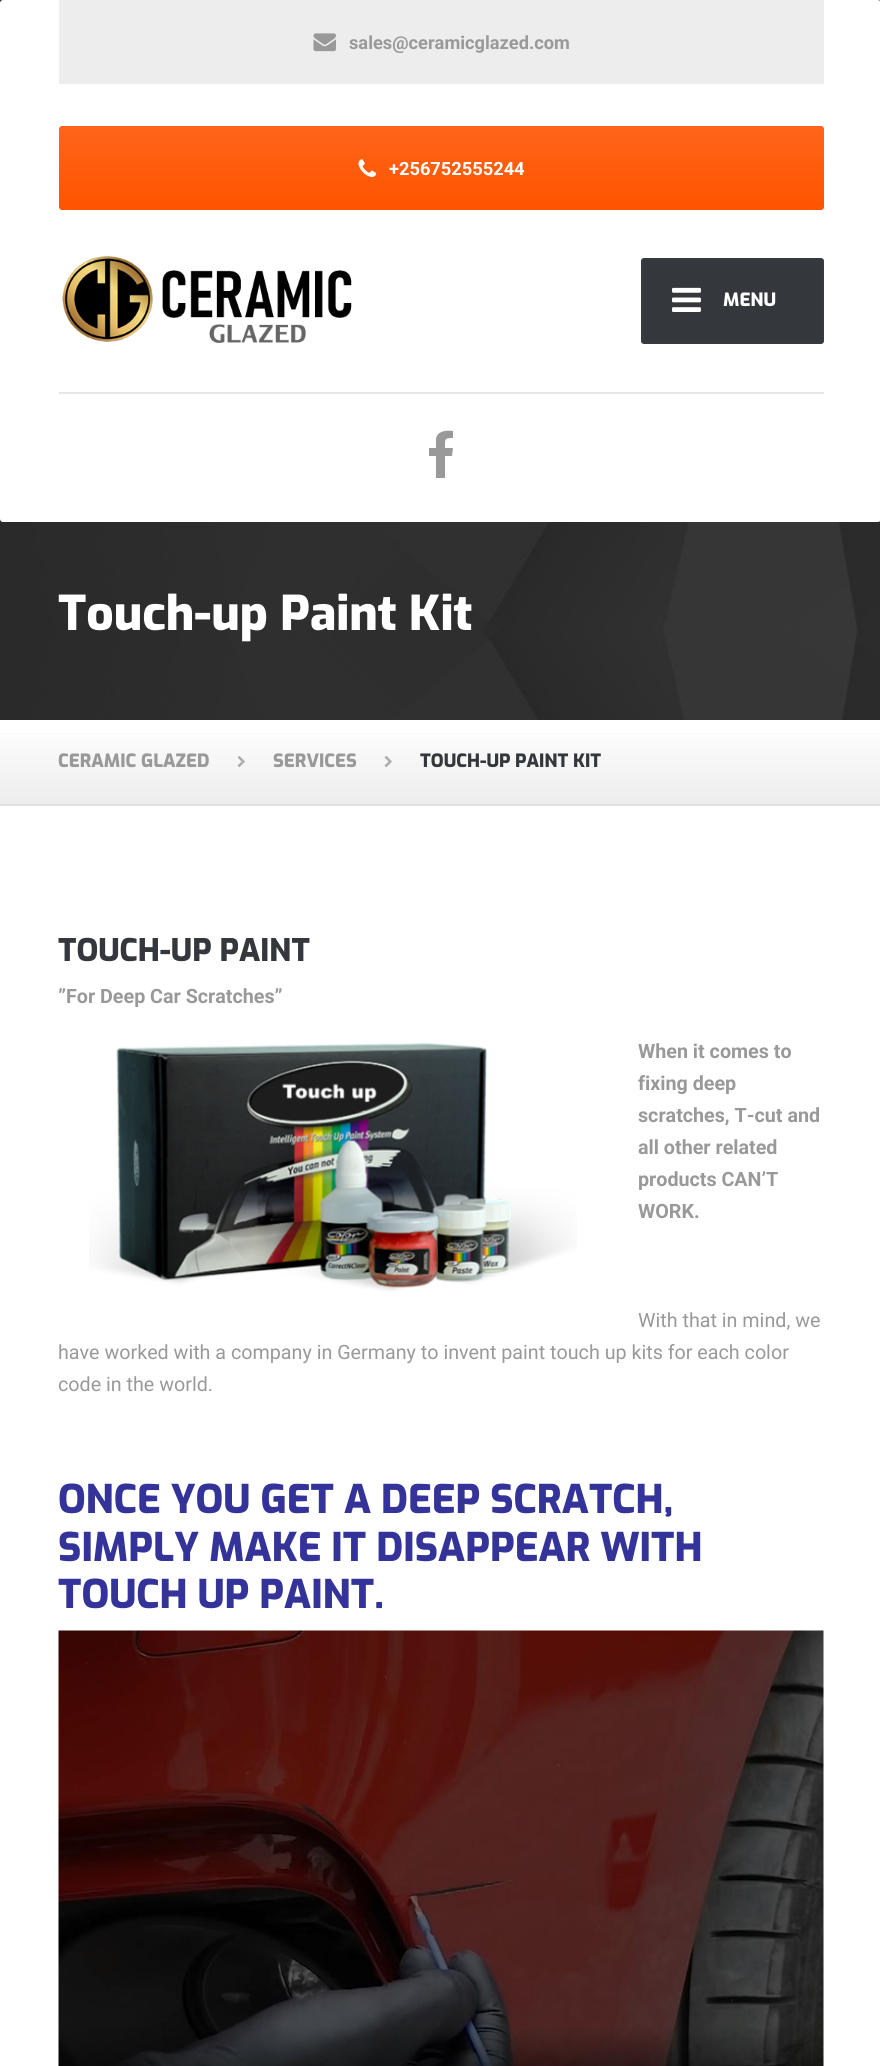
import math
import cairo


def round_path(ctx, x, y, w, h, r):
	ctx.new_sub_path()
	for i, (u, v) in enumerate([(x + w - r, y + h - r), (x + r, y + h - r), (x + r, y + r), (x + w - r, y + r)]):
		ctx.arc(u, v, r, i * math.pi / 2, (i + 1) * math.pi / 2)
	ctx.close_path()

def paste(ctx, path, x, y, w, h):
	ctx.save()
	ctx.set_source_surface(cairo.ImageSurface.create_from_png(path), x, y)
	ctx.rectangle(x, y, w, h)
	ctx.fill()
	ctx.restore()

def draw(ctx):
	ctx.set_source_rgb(1, 1, 1)
	ctx.paint()
	paste(ctx, 'media/1.png', 0, 0, 880, 720)
	ctx.set_source_rgb(1, 1, 1)
	round_path(ctx, 0, 0, 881, 522, 3)
	ctx.fill()
	ctx.set_source_rgb(0.929, 0.929, 0.929)
	ctx.rectangle(59, 0, 765, 84)
	ctx.fill()
	paste(ctx, 'media/2.png', 313, 33, 23, 19)
	ctx.select_font_face('Roboto', cairo.FONT_SLANT_NORMAL, cairo.FONT_WEIGHT_BOLD)
	ctx.set_font_size(18.25)
	ctx.set_source_rgb(0.6, 0.6, 0.6)
	ctx.move_to(349, 49)
	ctx.show_text('sales@ceramicglazed.com')
	gradient = cairo.LinearGradient(441, 210, 441, 126)
	gradient.add_color_stop_rgba(0, 1, 0.329, 0, 1)
	gradient.add_color_stop_rgba(1, 1, 0.396, 0.102, 1)
	ctx.set_source(gradient)
	round_path(ctx, 59, 126, 765, 84, 3)
	ctx.fill()
	paste(ctx, 'media/3.png', 358, 159, 19, 18)
	ctx.set_source_rgb(1, 1, 1)
	ctx.move_to(389, 175)
	ctx.show_text('+256752555244')
	paste(ctx, 'media/4.png', 62, 255, 290, 88)
	ctx.set_source_rgb(0.204, 0.216, 0.231)
	round_path(ctx, 642.5, 259.5, 180, 83, 1.5)
	ctx.fill_preserve()
	ctx.set_source_rgb(0.204, 0.227, 0.251)
	ctx.set_line_width(3)
	ctx.stroke()
	paste(ctx, 'media/5.png', 672, 287, 29, 25)
	ctx.select_font_face('Exo ExtraBold')
	ctx.set_source_rgb(1, 1, 1)
	ctx.move_to(723, 306)
	ctx.show_text('MENU')
	ctx.set_source_rgb(0.902, 0.902, 0.902)
	ctx.rectangle(59, 392, 765, 2)
	ctx.fill()
	ctx.set_source_rgb(0.6, 0.6, 0.6)
	ctx.new_path()
	ctx.move_to(453, 431)
	ctx.line_to(453, 438)
	ctx.curve_to(444, 438, 445, 439, 445, 448)
	ctx.line_to(453, 448)
	ctx.line_to(452, 456)
	ctx.line_to(445, 456)
	ctx.line_to(445, 478)
	ctx.line_to(436, 478)
	ctx.line_to(436, 456)
	ctx.line_to(429, 456)
	ctx.line_to(429, 448)
	ctx.line_to(436, 448)
	ctx.line_to(436, 439)
	ctx.curve_to(437, 431, 446, 430, 453, 431)
	ctx.close_path()
	ctx.fill()
	ctx.set_font_size(47.75)
	ctx.set_source_rgb(1, 1, 1)
	ctx.move_to(58, 630)
	ctx.show_text('Touch-up Paint Kit')
	gradient = cairo.LinearGradient(440, 720, 440, 804)
	gradient.add_color_stop_rgba(0, 1, 1, 1, 1)
	gradient.add_color_stop_rgba(1, 0.929, 0.929, 0.929, 1)
	ctx.set_source(gradient)
	ctx.rectangle(0, 732, 880, 72)
	ctx.fill()
	ctx.set_source_rgb(0.878, 0.878, 0.878)
	ctx.rectangle(0, 804, 880, 2)
	ctx.fill()
	ctx.set_font_size(18.25)
	ctx.set_source_rgb(0.6, 0.6, 0.6)
	ctx.move_to(58, 767)
	ctx.show_text('CERAMIC GLAZED')
	paste(ctx, 'media/6.png', 237, 756, 8, 12)
	ctx.move_to(273, 767)
	ctx.show_text('SERVICES')
	paste(ctx, 'media/6.png', 384, 756, 8, 12)
	ctx.set_source_rgb(0.204, 0.216, 0.231)
	ctx.move_to(420, 767)
	ctx.show_text('TOUCH-UP PAINT KIT')
	ctx.set_font_size(31)
	ctx.move_to(58, 961)
	ctx.show_text('TOUCH-UP PAINT')
	ctx.select_font_face('Roboto', cairo.FONT_SLANT_NORMAL, cairo.FONT_WEIGHT_BOLD)
	ctx.set_font_size(19.7)
	ctx.set_source_rgb(0.6, 0.6, 0.6)
	ctx.move_to(58, 1003)
	ctx.show_text('”For Deep Car Scratches”')
	paste(ctx, 'media/7.png', 89, 1042, 488, 250)
	for x, y, s in [
		(638, 1058, 'When it comes to'),
		(638, 1090, 'fixing deep'),
		(638, 1122, 'scratches, T-cut and'),
		(638, 1154, 'all other related'),
		(638, 1186, 'products CAN’T'),
		(638, 1218, 'WORK.'),
	]:
		ctx.move_to(x, y)
		ctx.show_text(s)
	ctx.select_font_face('Roboto')
	for x, y, s in [
		(638, 1327, 'With that in mind, we'),
		(58, 1359, 'have worked with a company in Germany to invent paint touch up kits for each color'),
		(58, 1391, 'code in the world.'),
	]:
		ctx.move_to(x, y)
		ctx.show_text(s)
	ctx.select_font_face('Exo ExtraBold')
	ctx.set_font_size(39.4)
	ctx.set_source_rgb(0.2, 0.2, 0.6)
	for x, y, s in [
		(58, 1513, 'ONCE YOU GET A DEEP SCRATCH,'),
		(58, 1561, 'SIMPLY MAKE IT DISAPPEAR WITH'),
		(58, 1608, 'TOUCH UP PAINT.'),
	]:
		ctx.move_to(x, y)
		ctx.show_text(s)
	paste(ctx, 'media/8.png', 58, 1630, 766, 436)


surface = cairo.ImageSurface(cairo.FORMAT_RGB24, 880, 2066)
ctx = cairo.Context(surface)
options = cairo.FontOptions()
options.set_hint_metrics(cairo.HINT_METRICS_OFF)
options.set_hint_style(cairo.HINT_STYLE_NONE)
ctx.set_font_options(options)
ctx.set_miter_limit(4)
draw(ctx)
surface.write_to_png('image.png')
